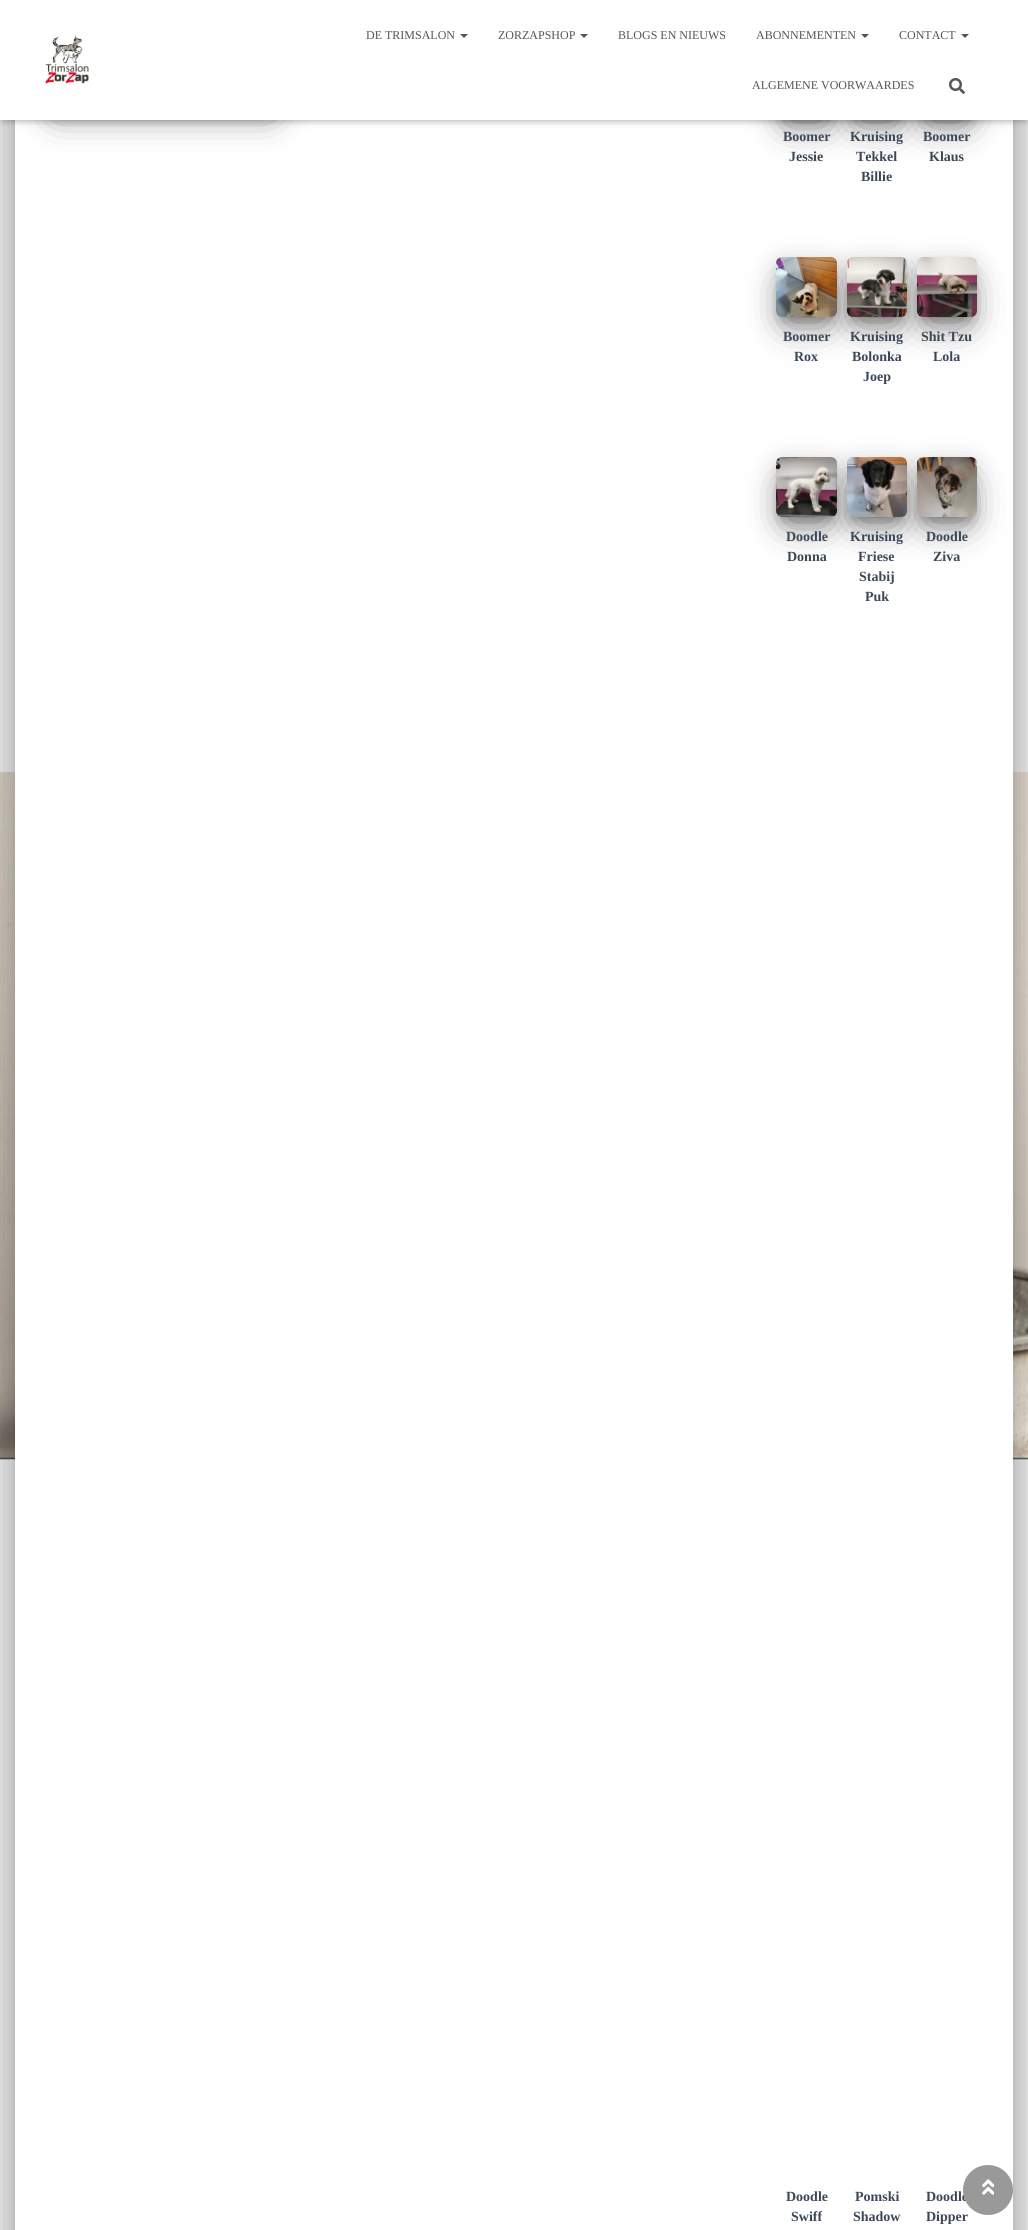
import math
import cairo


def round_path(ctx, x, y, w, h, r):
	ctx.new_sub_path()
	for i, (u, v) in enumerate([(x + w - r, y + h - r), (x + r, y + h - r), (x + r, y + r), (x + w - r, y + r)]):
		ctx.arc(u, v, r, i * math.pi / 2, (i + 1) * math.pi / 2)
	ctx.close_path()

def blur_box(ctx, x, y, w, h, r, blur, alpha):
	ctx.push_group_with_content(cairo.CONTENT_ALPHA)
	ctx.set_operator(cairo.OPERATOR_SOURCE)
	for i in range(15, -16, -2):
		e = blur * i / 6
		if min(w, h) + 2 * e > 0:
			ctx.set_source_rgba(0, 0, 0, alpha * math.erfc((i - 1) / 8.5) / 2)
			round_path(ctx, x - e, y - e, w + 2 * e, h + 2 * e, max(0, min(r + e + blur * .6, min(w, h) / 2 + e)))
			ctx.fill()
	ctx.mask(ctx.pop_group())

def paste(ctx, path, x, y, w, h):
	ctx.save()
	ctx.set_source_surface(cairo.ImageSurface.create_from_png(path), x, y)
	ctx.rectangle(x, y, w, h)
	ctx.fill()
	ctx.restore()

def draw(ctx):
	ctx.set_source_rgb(0.898, 0.898, 0.898)
	ctx.paint()
	paste(ctx, 'media/1.png', 0, 772, 1028, 688)
	ctx.set_source_rgb(0, 0, 0)
	blur_box(ctx, 20, -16, 988, 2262, 1, 5, 0.2)
	blur_box(ctx, 10, -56, 1008, 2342, 11, 15, 0.12)
	blur_box(ctx, 13, -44, 1002, 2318, 8, 12, 0.14)
	ctx.set_source_rgb(1, 1, 1)
	ctx.rectangle(15, 120, 998, 2110)
	ctx.fill()
	ctx.set_source_rgb(0, 0, 0)
	blur_box(ctx, 2, 6, 1024, 116, 0, 2.5, 0.1)
	blur_box(ctx, 0, 1, 1028, 120, 0, 5, 0.12)
	blur_box(ctx, 6, 7, 1016, 108, 0, 5, 0.42)
	blur_box(ctx, 44, -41, 239, 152, 3, 12.5, 0.12)
	blur_box(ctx, 56, -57, 215, 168, 0, 19, 0.56)
	blur_box(ctx, 776, 60, 61, 61, 6, 12.5, 0.12)
	blur_box(ctx, 788, 84, 37, 37, 0, 19, 0.56)
	blur_box(ctx, 781, 69, 51, 51, 1, 5, 0.2)
	blur_box(ctx, 847, 60, 60, 61, 6, 12.5, 0.12)
	blur_box(ctx, 859, 84, 36, 37, 0, 19, 0.56)
	blur_box(ctx, 852, 69, 50, 51, 1, 5, 0.2)
	blur_box(ctx, 917, 60, 60, 61, 6, 12.5, 0.12)
	blur_box(ctx, 929, 84, 36, 37, 0, 19, 0.56)
	blur_box(ctx, 922, 69, 50, 51, 1, 5, 0.2)
	ctx.set_source_rgb(1, 1, 1)
	ctx.rectangle(0, 0, 1028, 120)
	ctx.fill()
	paste(ctx, 'media/2.png', 45, 35, 44, 49)
	ctx.select_font_face('Liberation Serif')
	ctx.set_font_size(12)
	ctx.set_source_rgb(0.333, 0.333, 0.333)
	ctx.move_to(366, 39)
	ctx.show_text('DE TRIMSALON')
	ctx.new_path()
	ctx.move_to(460, 34)
	ctx.line_to(468, 34)
	ctx.line_to(464, 38)
	ctx.close_path()
	ctx.fill()
	ctx.move_to(498, 39)
	ctx.show_text('ZORZAPSHOP')
	ctx.new_path()
	ctx.move_to(580, 34)
	ctx.line_to(588, 34)
	ctx.line_to(584, 38)
	ctx.close_path()
	ctx.fill()
	ctx.move_to(618, 39)
	ctx.show_text('BLOGS EN NIEUWS')
	ctx.move_to(756, 39)
	ctx.show_text('ABONNEMENTEN')
	ctx.new_path()
	ctx.move_to(861, 34)
	ctx.line_to(869, 34)
	ctx.line_to(865, 38)
	ctx.close_path()
	ctx.fill()
	ctx.move_to(899, 39)
	ctx.show_text('CONTACT')
	ctx.new_path()
	ctx.move_to(961, 34)
	ctx.line_to(969, 34)
	ctx.line_to(965, 38)
	ctx.close_path()
	ctx.fill()
	ctx.move_to(752, 89)
	ctx.show_text('ALGEMENE VOORWAARDES')
	paste(ctx, 'media/3.png', 949, 78, 16, 16)
	ctx.select_font_face('Liberation Serif', cairo.FONT_SLANT_NORMAL, cairo.FONT_WEIGHT_BOLD)
	ctx.set_font_size(14)
	ctx.set_source_rgb(0.235, 0.282, 0.345)
	for x, y, s in [
		(783, 141, 'Boomer'),
		(789, 161, 'Jessie'),
		(850, 141, 'Kruising'),
		(856, 161, 'Tekkel'),
		(861, 181, 'Billie'),
		(923, 141, 'Boomer'),
		(929, 161, 'Klaus'),
	]:
		ctx.move_to(x, y)
		ctx.show_text(s)
	ctx.set_source_rgb(0, 0, 0)
	blur_box(ctx, 776, 261, 61, 60, 6, 12.5, 0.12)
	blur_box(ctx, 788, 285, 37, 36, 0, 19, 0.56)
	blur_box(ctx, 781, 270, 51, 50, 1, 5, 0.2)
	paste(ctx, 'media/4.png', 776, 257, 61, 60)
	ctx.set_source_rgb(0.235, 0.282, 0.345)
	ctx.move_to(783, 341)
	ctx.show_text('Boomer')
	ctx.move_to(794, 361)
	ctx.show_text('Rox')
	ctx.set_source_rgb(0, 0, 0)
	blur_box(ctx, 847, 261, 60, 60, 6, 12.5, 0.12)
	blur_box(ctx, 859, 285, 36, 36, 0, 19, 0.56)
	blur_box(ctx, 852, 270, 50, 50, 1, 5, 0.2)
	paste(ctx, 'media/5.png', 847, 257, 60, 60)
	ctx.set_source_rgb(0.235, 0.282, 0.345)
	for x, y, s in [
		(850, 341, 'Kruising'),
		(852, 361, 'Bolonka'),
		(863, 381, 'Joep'),
	]:
		ctx.move_to(x, y)
		ctx.show_text(s)
	ctx.set_source_rgb(0, 0, 0)
	blur_box(ctx, 917, 261, 60, 60, 6, 12.5, 0.12)
	blur_box(ctx, 929, 285, 36, 36, 0, 19, 0.56)
	blur_box(ctx, 922, 270, 50, 50, 1, 5, 0.2)
	paste(ctx, 'media/6.png', 917, 257, 60, 60)
	ctx.set_source_rgb(0.235, 0.282, 0.345)
	ctx.move_to(921, 341)
	ctx.show_text('Shit Tzu')
	ctx.move_to(933, 361)
	ctx.show_text('Lola')
	ctx.set_source_rgb(0, 0, 0)
	blur_box(ctx, 776, 461, 61, 60, 6, 12.5, 0.12)
	blur_box(ctx, 788, 485, 37, 36, 0, 19, 0.56)
	blur_box(ctx, 781, 470, 51, 50, 1, 5, 0.2)
	paste(ctx, 'media/7.png', 776, 457, 61, 60)
	ctx.set_source_rgb(0.235, 0.282, 0.345)
	ctx.move_to(786, 541)
	ctx.show_text('Doodle')
	ctx.move_to(787, 561)
	ctx.show_text('Donna')
	ctx.set_source_rgb(0, 0, 0)
	blur_box(ctx, 847, 461, 60, 60, 6, 12.5, 0.12)
	blur_box(ctx, 859, 485, 36, 36, 0, 19, 0.56)
	blur_box(ctx, 852, 470, 50, 50, 1, 5, 0.2)
	paste(ctx, 'media/8.png', 847, 457, 60, 60)
	ctx.set_source_rgb(0.235, 0.282, 0.345)
	for x, y, s in [
		(850, 541, 'Kruising'),
		(858, 561, 'Friese'),
		(859, 581, 'Stabij'),
		(865, 601, 'Puk'),
	]:
		ctx.move_to(x, y)
		ctx.show_text(s)
	ctx.set_source_rgb(0, 0, 0)
	blur_box(ctx, 917, 461, 60, 60, 6, 12.5, 0.12)
	blur_box(ctx, 929, 485, 36, 36, 0, 19, 0.56)
	blur_box(ctx, 922, 470, 50, 50, 1, 5, 0.2)
	paste(ctx, 'media/9.png', 917, 457, 60, 60)
	ctx.set_source_rgb(0.235, 0.282, 0.345)
	for x, y, s in [
		(926, 541, 'Doodle'),
		(933, 561, 'Ziva'),
		(786, 2201, 'Doodle'),
		(791, 2221, 'Swiff'),
		(855, 2201, 'Pomski'),
		(853, 2221, 'Shadow'),
		(926, 2201, 'Doodle'),
		(926, 2221, 'Dipper'),
	]:
		ctx.move_to(x, y)
		ctx.show_text(s)
	ctx.set_source_rgb(0.6, 0.6, 0.6)
	ctx.new_path()
	ctx.arc(988, 2190, 25, 0, 2 * math.pi)
	ctx.fill()
	paste(ctx, 'media/10.png', 982, 2179, 12, 16)


surface = cairo.ImageSurface(cairo.FORMAT_RGB24, 1028, 2230)
ctx = cairo.Context(surface)
options = cairo.FontOptions()
options.set_hint_metrics(cairo.HINT_METRICS_OFF)
options.set_hint_style(cairo.HINT_STYLE_NONE)
ctx.set_font_options(options)
ctx.set_miter_limit(4)
draw(ctx)
surface.write_to_png('image.png')
